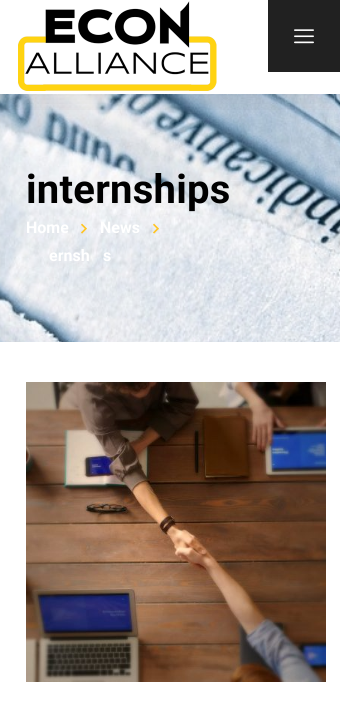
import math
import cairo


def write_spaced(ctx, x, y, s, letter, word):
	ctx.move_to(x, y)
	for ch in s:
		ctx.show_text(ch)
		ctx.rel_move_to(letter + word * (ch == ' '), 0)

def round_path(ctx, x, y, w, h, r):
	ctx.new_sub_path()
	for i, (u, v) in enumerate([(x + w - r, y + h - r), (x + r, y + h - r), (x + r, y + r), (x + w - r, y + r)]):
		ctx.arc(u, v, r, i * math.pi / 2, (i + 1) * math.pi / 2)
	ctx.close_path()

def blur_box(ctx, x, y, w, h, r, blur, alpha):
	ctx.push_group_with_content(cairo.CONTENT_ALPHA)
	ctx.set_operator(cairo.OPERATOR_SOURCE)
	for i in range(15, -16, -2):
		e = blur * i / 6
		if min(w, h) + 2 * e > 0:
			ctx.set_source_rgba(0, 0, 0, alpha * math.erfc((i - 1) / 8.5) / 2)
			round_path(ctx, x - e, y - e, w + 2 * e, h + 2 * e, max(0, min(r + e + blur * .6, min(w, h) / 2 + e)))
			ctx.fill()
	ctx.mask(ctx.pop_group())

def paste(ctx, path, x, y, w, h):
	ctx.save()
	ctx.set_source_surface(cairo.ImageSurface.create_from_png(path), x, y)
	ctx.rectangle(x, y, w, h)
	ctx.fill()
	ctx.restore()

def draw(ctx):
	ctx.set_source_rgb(1, 1, 1)
	ctx.paint()
	paste(ctx, 'media/3.png', 0, 94, 340, 248)
	ctx.save()
	ctx.rectangle(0, 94, 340, 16)
	ctx.clip()
	ctx.set_source_rgb(0, 0, 0)
	blur_box(ctx, 0, 8, 340, 94, 0, 12, 0.08)
	ctx.restore()
	paste(ctx, 'media/1.png', 18, 1, 199, 90)
	ctx.set_source_rgb(0.129, 0.129, 0.129)
	ctx.rectangle(268, 0, 72, 72)
	ctx.fill()
	paste(ctx, 'media/2.png', 294, 29, 20, 15)
	ctx.select_font_face('Roboto', cairo.FONT_SLANT_NORMAL, cairo.FONT_WEIGHT_BOLD)
	ctx.set_font_size(40)
	ctx.set_source_rgb(0, 0, 0)
	write_spaced(ctx, 26, 203, 'internships', 0.25, 0)
	ctx.set_font_size(16)
	ctx.set_source_rgb(1, 1, 1)
	ctx.move_to(26, 233)
	ctx.show_text('Home')
	paste(ctx, 'media/4.png', 81, 223, 6, 11)
	ctx.move_to(100, 233)
	ctx.show_text('News')
	paste(ctx, 'media/5.png', 153, 223, 6, 11)
	ctx.move_to(49, 261)
	ctx.show_text('ernsh')
	ctx.move_to(103, 261)
	ctx.show_text('s')
	paste(ctx, 'media/6.png', 26, 382, 300, 300)


surface = cairo.ImageSurface(cairo.FORMAT_RGB24, 340, 719)
ctx = cairo.Context(surface)
options = cairo.FontOptions()
options.set_hint_metrics(cairo.HINT_METRICS_OFF)
options.set_hint_style(cairo.HINT_STYLE_NONE)
ctx.set_font_options(options)
ctx.set_miter_limit(4)
draw(ctx)
surface.write_to_png('image.png')
